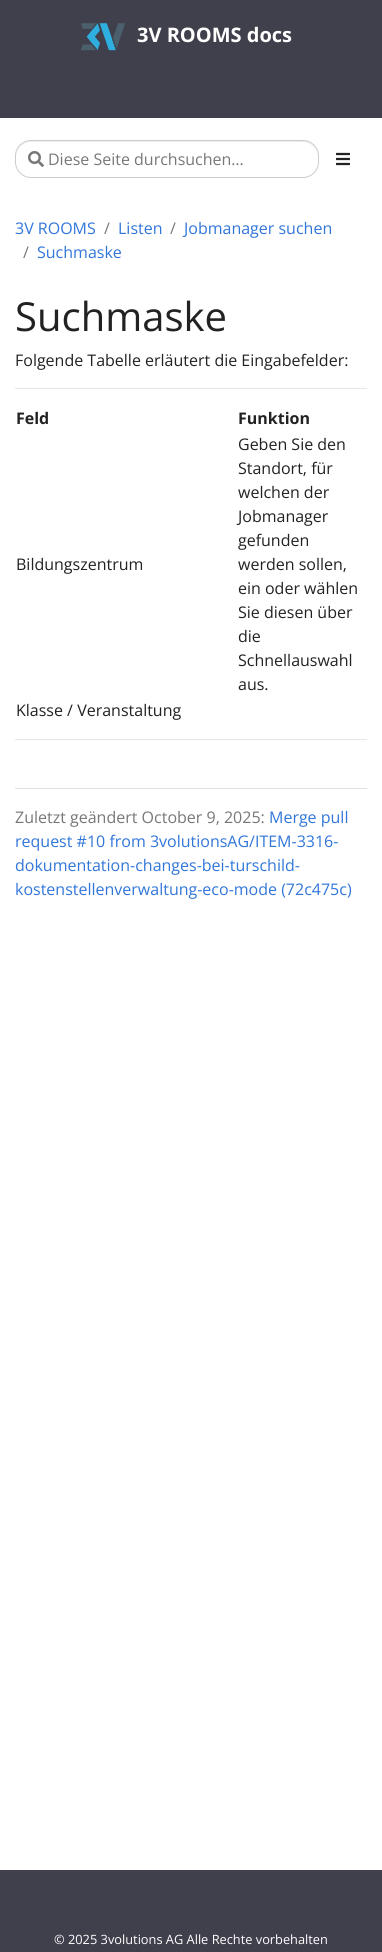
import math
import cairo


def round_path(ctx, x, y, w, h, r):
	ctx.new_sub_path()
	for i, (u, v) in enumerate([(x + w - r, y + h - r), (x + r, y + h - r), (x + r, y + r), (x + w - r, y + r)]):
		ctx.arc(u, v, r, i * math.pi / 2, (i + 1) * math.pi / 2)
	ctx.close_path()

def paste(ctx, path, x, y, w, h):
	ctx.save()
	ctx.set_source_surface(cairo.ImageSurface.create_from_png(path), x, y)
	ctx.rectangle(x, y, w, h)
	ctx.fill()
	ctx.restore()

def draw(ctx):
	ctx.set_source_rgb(1, 1, 1)
	ctx.paint()
	ctx.set_source_rgb(0.251, 0.247, 0.298)
	ctx.rectangle(0, 0, 382, 118)
	ctx.fill()
	paste(ctx, 'media/1.png', 81, 23, 44, 28)
	ctx.select_font_face('Open Sans', cairo.FONT_SLANT_NORMAL, cairo.FONT_WEIGHT_BOLD)
	ctx.set_font_size(20)
	ctx.set_source_rgb(1, 1, 1)
	ctx.move_to(137, 42)
	ctx.show_text('3V ROOMS docs')
	ctx.set_source_rgb(0.925, 0.925, 0.925)
	ctx.new_path()
	ctx.move_to(31, 142)
	ctx.line_to(303, 142)
	ctx.curve_to(311, 142, 318, 149, 318, 157)
	ctx.line_to(318, 156)
	ctx.curve_to(318, 148, 311, 141, 303, 141)
	ctx.line_to(31, 141)
	ctx.curve_to(23, 141, 16, 148, 16, 156)
	ctx.line_to(16, 157)
	ctx.curve_to(16, 149, 23, 142, 31, 142)
	ctx.close_path()
	ctx.fill()
	round_path(ctx, 15.5, 140.5, 303, 37, 15.5)
	ctx.set_source_rgb(0.8, 0.8, 0.8)
	ctx.set_line_width(1)
	ctx.stroke()
	paste(ctx, 'media/2.png', 28, 151, 16, 16)
	ctx.select_font_face('Open Sans')
	ctx.set_font_size(16)
	ctx.set_source_rgb(0.475, 0.463, 0.463)
	ctx.move_to(48, 165)
	ctx.show_text('Diese Seite durchsuchen…')
	paste(ctx, 'media/3.png', 336, 152, 14, 14)
	ctx.set_source_rgb(0.192, 0.463, 0.851)
	ctx.move_to(15, 234)
	ctx.show_text('3V ROOMS')
	ctx.set_source_rgb(0.475, 0.463, 0.463)
	ctx.move_to(104, 234)
	ctx.show_text('/')
	ctx.set_source_rgb(0.192, 0.463, 0.851)
	ctx.move_to(118, 234)
	ctx.show_text('Listen')
	ctx.set_source_rgb(0.475, 0.463, 0.463)
	ctx.move_to(170, 234)
	ctx.show_text('/')
	ctx.set_source_rgb(0.192, 0.463, 0.851)
	ctx.move_to(184, 234)
	ctx.show_text('Jobmanager suchen')
	ctx.set_source_rgb(0.475, 0.463, 0.463)
	ctx.move_to(23, 258)
	ctx.show_text('/')
	ctx.set_source_rgb(0.192, 0.463, 0.851)
	ctx.move_to(37, 258)
	ctx.show_text('Suchmaske')
	ctx.set_font_size(40)
	ctx.set_source_rgb(0.133, 0.133, 0.133)
	ctx.move_to(15, 331)
	ctx.show_text('Suchmaske')
	ctx.set_font_size(16)
	ctx.move_to(15, 366)
	ctx.show_text('Folgende Tabelle erläutert die Eingabefelder:')
	ctx.set_source_rgb(0.902, 0.902, 0.902)
	ctx.rectangle(15, 388, 352, 1)
	ctx.fill()
	ctx.select_font_face('Open Sans', cairo.FONT_SLANT_NORMAL, cairo.FONT_WEIGHT_BOLD)
	ctx.set_source_rgb(0.133, 0.133, 0.133)
	ctx.move_to(16, 424)
	ctx.show_text('Feld')
	ctx.move_to(238, 424)
	ctx.show_text('Funktion')
	ctx.select_font_face('Open Sans')
	for x, y, s in [
		(16, 570, 'Bildungszentrum'),
		(238, 450, 'Geben Sie den'),
		(238, 474, 'Standort, für'),
		(238, 498, 'welchen der'),
		(238, 522, 'Jobmanager'),
		(238, 546, 'gefunden'),
		(238, 570, 'werden sollen,'),
		(238, 594, 'ein oder wählen'),
		(238, 618, 'Sie diesen über'),
		(238, 642, 'die'),
		(238, 666, 'Schnellauswahl'),
		(238, 690, 'aus.'),
		(16, 716, 'Klasse / Veranstaltung'),
	]:
		ctx.move_to(x, y)
		ctx.show_text(s)
	ctx.set_source_rgb(0.902, 0.902, 0.902)
	ctx.rectangle(15, 739, 352, 1)
	ctx.fill()
	ctx.set_source_rgb(0.871, 0.886, 0.902)
	ctx.rectangle(15, 788, 352, 1)
	ctx.fill()
	ctx.set_source_rgb(0.475, 0.463, 0.463)
	ctx.move_to(15, 823)
	ctx.show_text('Zuletzt geändert October 9, 2025:')
	ctx.set_source_rgb(0.192, 0.463, 0.851)
	for x, y, s in [
		(269, 823, 'Merge pull'),
		(15, 847, 'request #10 from 3volutionsAG/ITEM-3316-'),
		(15, 871, 'dokumentation-changes-bei-turschild-'),
		(15, 895, 'kostenstellenverwaltung-eco-mode (72c475c)'),
	]:
		ctx.move_to(x, y)
		ctx.show_text(s)
	ctx.set_source_rgb(0.251, 0.247, 0.298)
	ctx.rectangle(0, 1870, 382, 82)
	ctx.fill()
	ctx.set_font_size(12.8)
	ctx.set_source_rgb(1, 1, 1)
	ctx.move_to(54, 1944)
	ctx.show_text('© 2025 3volutions AG Alle Rechte vorbehalten')


surface = cairo.ImageSurface(cairo.FORMAT_RGB24, 382, 1952)
ctx = cairo.Context(surface)
options = cairo.FontOptions()
options.set_hint_metrics(cairo.HINT_METRICS_OFF)
options.set_hint_style(cairo.HINT_STYLE_NONE)
ctx.set_font_options(options)
ctx.set_miter_limit(4)
draw(ctx)
surface.write_to_png('image.png')
